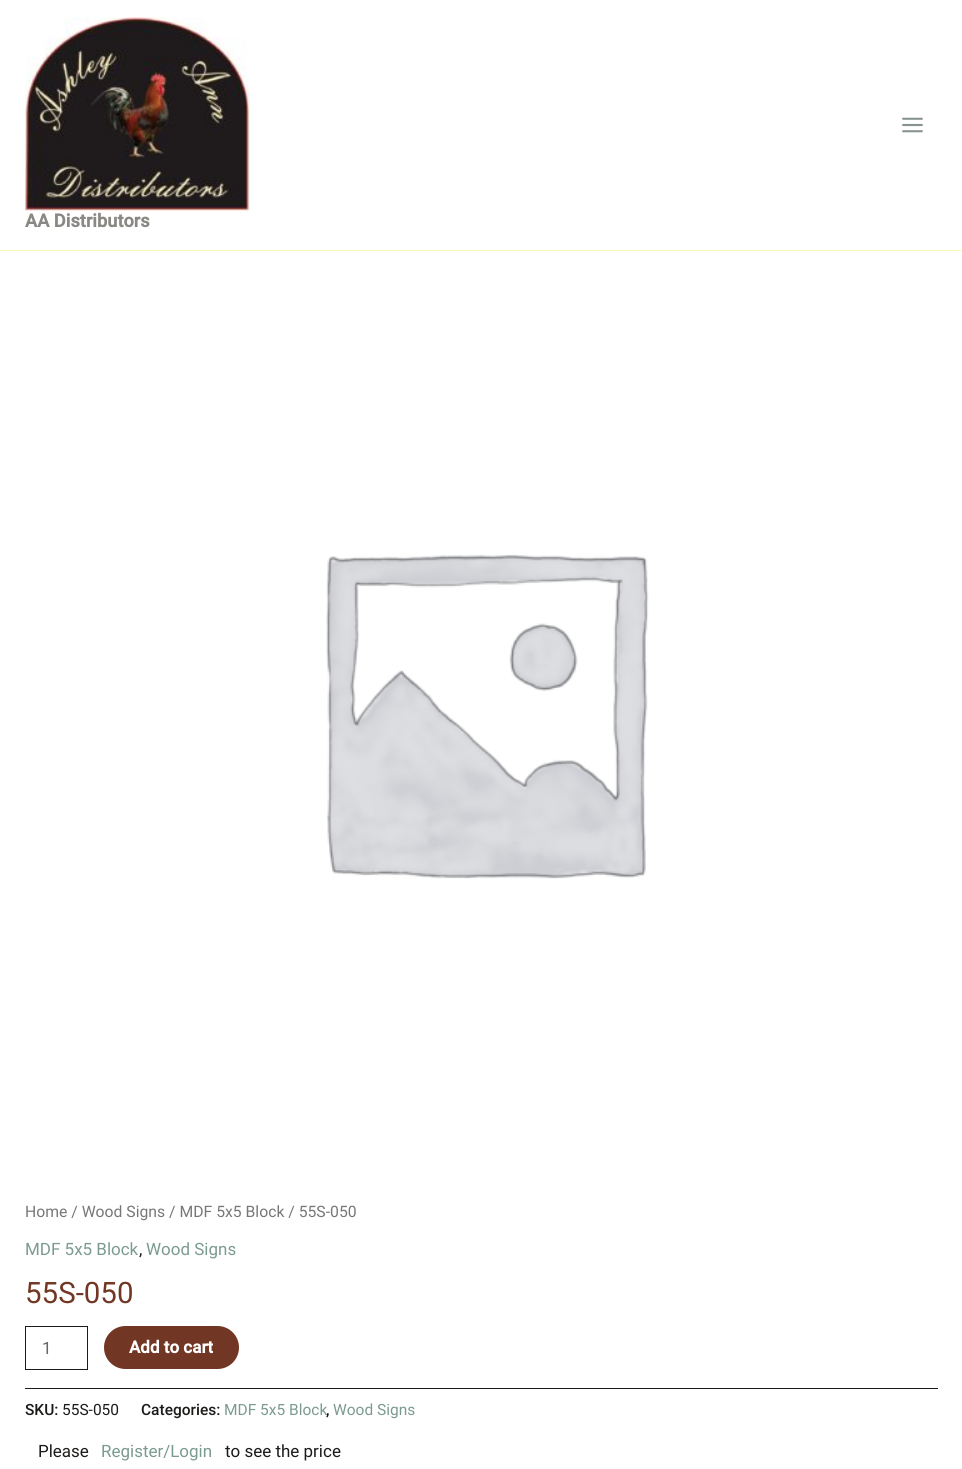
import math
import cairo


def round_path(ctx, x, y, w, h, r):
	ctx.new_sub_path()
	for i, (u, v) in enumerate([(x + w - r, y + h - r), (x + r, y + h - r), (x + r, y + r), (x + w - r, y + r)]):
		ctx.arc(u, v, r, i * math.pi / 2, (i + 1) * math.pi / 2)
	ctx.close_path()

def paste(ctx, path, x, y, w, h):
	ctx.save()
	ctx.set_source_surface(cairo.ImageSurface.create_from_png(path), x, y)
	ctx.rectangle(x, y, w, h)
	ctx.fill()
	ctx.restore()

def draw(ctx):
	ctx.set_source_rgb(1, 1, 1)
	ctx.paint()
	ctx.set_source_rgb(0.98, 0.98, 0.702)
	ctx.rectangle(0, 250, 962, 1)
	ctx.fill()
	paste(ctx, 'media/1.png', 902, 117, 21, 16)
	paste(ctx, 'media/2.png', 25, 17, 225, 195)
	ctx.select_font_face('Roboto', cairo.FONT_SLANT_NORMAL, cairo.FONT_WEIGHT_BOLD)
	ctx.set_font_size(18.25)
	ctx.set_source_rgb(0.541, 0.533, 0.518)
	ctx.move_to(25, 227)
	ctx.show_text('AA Distributors')
	paste(ctx, 'media/3.png', 326, 554, 323, 325)
	ctx.select_font_face('Roboto')
	ctx.set_font_size(15.75)
	ctx.set_source_rgb(0.467, 0.467, 0.467)
	ctx.move_to(25, 1217)
	ctx.show_text('Home / Wood Signs / MDF 5x5 Block / 55S-050')
	ctx.set_font_size(17)
	ctx.set_source_rgb(0.482, 0.604, 0.569)
	ctx.move_to(25, 1255)
	ctx.show_text('MDF 5x5 Block')
	ctx.set_source_rgb(0.114, 0.106, 0.102)
	ctx.move_to(139, 1255)
	ctx.show_text(',')
	ctx.set_source_rgb(0.482, 0.604, 0.569)
	ctx.move_to(146, 1255)
	ctx.show_text('Wood Signs')
	ctx.set_font_size(29.5)
	ctx.set_source_rgb(0.447, 0.216, 0.141)
	ctx.move_to(25, 1303)
	ctx.show_text('55S-050')
	ctx.rectangle(25.5, 1326.5, 62, 43)
	ctx.set_source_rgb(0.114, 0.106, 0.102)
	ctx.set_line_width(1)
	ctx.stroke()
	ctx.set_font_size(17)
	ctx.set_source_rgb(0.4, 0.4, 0.4)
	ctx.move_to(42, 1354)
	ctx.show_text('1')
	ctx.set_source_rgb(0.447, 0.216, 0.141)
	round_path(ctx, 104, 1326, 135, 43, 21.5)
	ctx.fill()
	ctx.select_font_face('Roboto', cairo.FONT_SLANT_NORMAL, cairo.FONT_WEIGHT_BOLD)
	ctx.set_source_rgb(1, 1, 1)
	ctx.move_to(129, 1353)
	ctx.show_text('Add to cart')
	ctx.set_source_rgb(0.114, 0.106, 0.102)
	ctx.rectangle(25, 1388, 913, 1)
	ctx.fill()
	ctx.select_font_face('Roboto Medium')
	ctx.set_font_size(15.5)
	ctx.move_to(25, 1415)
	ctx.show_text('SKU:')
	ctx.select_font_face('Roboto')
	ctx.move_to(62, 1415)
	ctx.show_text('55S-050')
	ctx.select_font_face('Roboto Medium')
	ctx.move_to(141, 1415)
	ctx.show_text('Categories:')
	ctx.select_font_face('Roboto')
	ctx.set_source_rgb(0.482, 0.604, 0.569)
	ctx.move_to(224, 1415)
	ctx.show_text('MDF 5x5 Block')
	ctx.select_font_face('Roboto Medium')
	ctx.set_source_rgb(0.114, 0.106, 0.102)
	ctx.move_to(326, 1415)
	ctx.show_text(',')
	ctx.select_font_face('Roboto')
	ctx.set_source_rgb(0.482, 0.604, 0.569)
	ctx.move_to(333, 1415)
	ctx.show_text('Wood Signs')
	ctx.set_font_size(17)
	ctx.set_source_rgb(0.114, 0.106, 0.102)
	ctx.move_to(38, 1457)
	ctx.show_text('Please')
	ctx.set_source_rgb(0.482, 0.604, 0.569)
	ctx.move_to(101, 1457)
	ctx.show_text('Register/Login')
	ctx.set_source_rgb(0.114, 0.106, 0.102)
	ctx.move_to(225, 1457)
	ctx.show_text('to see the price')


surface = cairo.ImageSurface(cairo.FORMAT_RGB24, 962, 1469)
ctx = cairo.Context(surface)
options = cairo.FontOptions()
options.set_hint_metrics(cairo.HINT_METRICS_OFF)
options.set_hint_style(cairo.HINT_STYLE_NONE)
ctx.set_font_options(options)
ctx.set_miter_limit(4)
draw(ctx)
surface.write_to_png('image.png')
